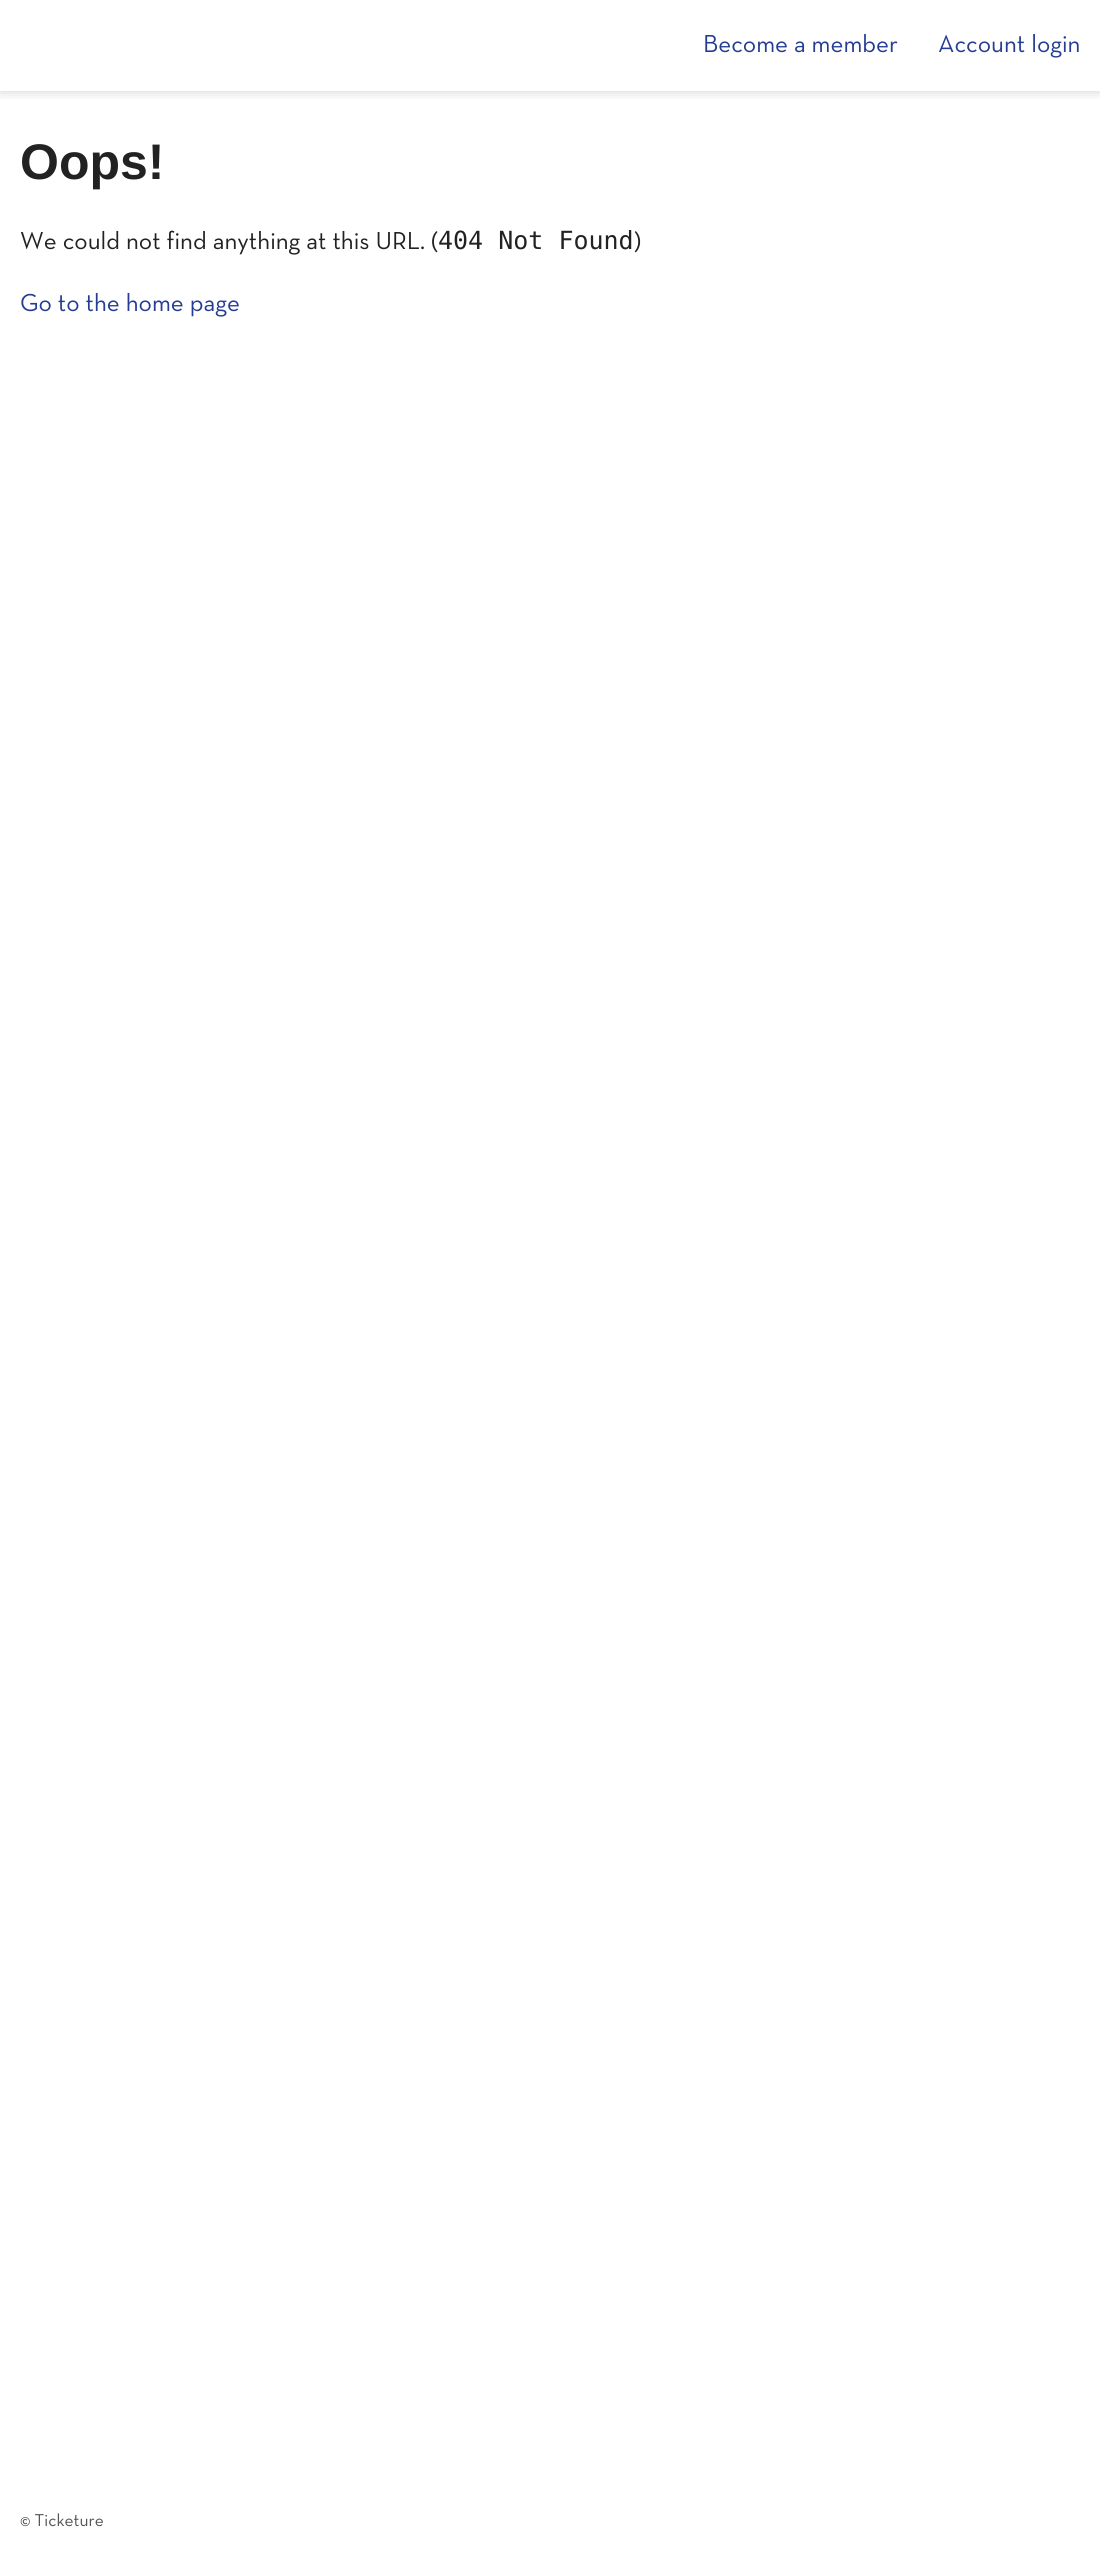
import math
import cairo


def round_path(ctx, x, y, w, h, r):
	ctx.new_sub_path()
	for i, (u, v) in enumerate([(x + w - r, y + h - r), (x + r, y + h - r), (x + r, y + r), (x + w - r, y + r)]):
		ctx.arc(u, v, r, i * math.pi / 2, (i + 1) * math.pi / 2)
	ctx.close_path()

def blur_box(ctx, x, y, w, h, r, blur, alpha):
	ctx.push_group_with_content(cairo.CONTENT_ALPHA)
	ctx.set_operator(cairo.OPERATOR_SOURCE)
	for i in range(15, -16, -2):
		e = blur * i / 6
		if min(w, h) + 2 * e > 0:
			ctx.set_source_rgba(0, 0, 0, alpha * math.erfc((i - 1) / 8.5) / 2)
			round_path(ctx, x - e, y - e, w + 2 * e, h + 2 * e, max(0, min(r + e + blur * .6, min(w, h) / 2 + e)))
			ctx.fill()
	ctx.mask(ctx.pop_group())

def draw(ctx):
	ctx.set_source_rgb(1, 1, 1)
	ctx.paint()
	ctx.save()
	ctx.rectangle(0, 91, 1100, 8)
	ctx.clip()
	ctx.set_source_rgb(0, 0, 0)
	blur_box(ctx, 0, 0, 1100, 91, 0, 6, 0.2)
	ctx.restore()
	ctx.select_font_face('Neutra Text')
	ctx.set_font_size(25)
	ctx.set_source_rgb(0.141, 0.235, 0.58)
	ctx.move_to(703, 52)
	ctx.show_text('Become a member')
	ctx.move_to(938, 52)
	ctx.show_text('Account login')
	ctx.select_font_face('Liberation Sans', cairo.FONT_SLANT_NORMAL, cairo.FONT_WEIGHT_BOLD)
	ctx.set_font_size(50)
	ctx.set_source_rgb(0.133, 0.133, 0.133)
	ctx.move_to(20, 179)
	ctx.show_text('Oops!')
	ctx.select_font_face('Neutra Text')
	ctx.set_font_size(25)
	ctx.move_to(20, 249)
	ctx.show_text('We could not find anything at this URL. (')
	ctx.select_font_face('DejaVu Sans Mono')
	ctx.move_to(438, 249)
	ctx.show_text('404 Not Found')
	ctx.select_font_face('Neutra Text')
	ctx.move_to(634, 249)
	ctx.show_text(')')
	ctx.set_source_rgb(0.141, 0.235, 0.58)
	ctx.move_to(20, 311)
	ctx.show_text('Go to the home page')
	ctx.set_font_size(17.5)
	ctx.set_source_rgb(0.333, 0.333, 0.333)
	ctx.move_to(20, 2526)
	ctx.show_text('© Ticketure')


surface = cairo.ImageSurface(cairo.FORMAT_RGB24, 1100, 2560)
ctx = cairo.Context(surface)
options = cairo.FontOptions()
options.set_hint_metrics(cairo.HINT_METRICS_OFF)
options.set_hint_style(cairo.HINT_STYLE_NONE)
ctx.set_font_options(options)
ctx.set_miter_limit(4)
draw(ctx)
surface.write_to_png('image.png')
